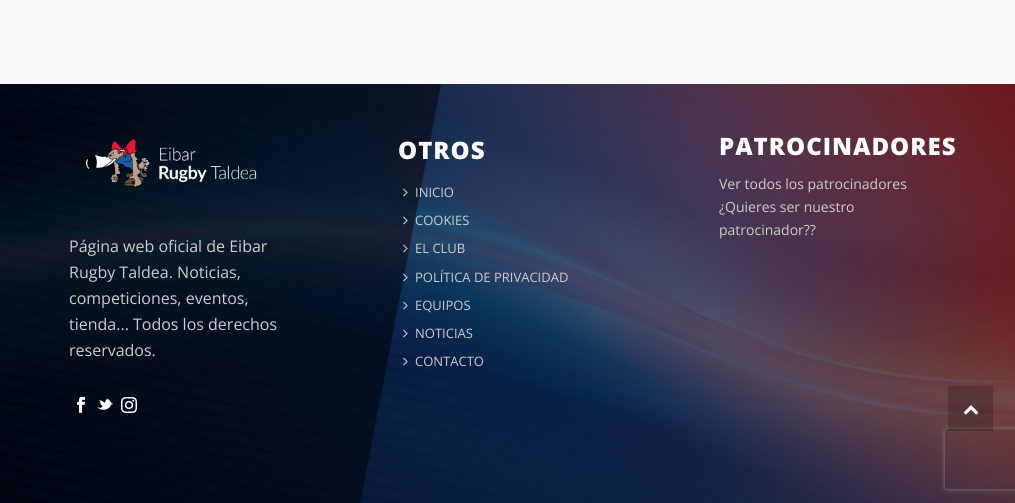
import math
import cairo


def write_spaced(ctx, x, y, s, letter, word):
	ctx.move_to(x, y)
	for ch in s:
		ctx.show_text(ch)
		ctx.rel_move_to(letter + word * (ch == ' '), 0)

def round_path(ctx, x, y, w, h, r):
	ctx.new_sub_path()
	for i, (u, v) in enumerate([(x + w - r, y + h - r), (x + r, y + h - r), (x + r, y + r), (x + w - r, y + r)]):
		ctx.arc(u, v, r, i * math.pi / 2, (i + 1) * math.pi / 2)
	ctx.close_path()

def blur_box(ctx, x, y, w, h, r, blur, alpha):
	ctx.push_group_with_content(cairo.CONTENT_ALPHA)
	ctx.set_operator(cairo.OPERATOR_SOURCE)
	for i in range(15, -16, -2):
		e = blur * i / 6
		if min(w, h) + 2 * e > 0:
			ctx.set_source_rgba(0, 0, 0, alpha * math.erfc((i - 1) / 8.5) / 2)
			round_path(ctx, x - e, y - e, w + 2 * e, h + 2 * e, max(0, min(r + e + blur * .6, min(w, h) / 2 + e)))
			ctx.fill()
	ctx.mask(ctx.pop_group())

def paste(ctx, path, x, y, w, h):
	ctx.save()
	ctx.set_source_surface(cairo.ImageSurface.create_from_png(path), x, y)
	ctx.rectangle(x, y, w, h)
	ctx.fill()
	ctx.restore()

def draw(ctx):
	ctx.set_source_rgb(1, 1, 1)
	ctx.paint()
	ctx.set_source_rgb(0.969, 0.969, 0.969)
	ctx.rectangle(0, 0, 1015, 84)
	ctx.fill()
	paste(ctx, 'media/1.png', 0, 84, 1015, 419)
	paste(ctx, 'media/2.png', 85, 139, 172, 48)
	ctx.select_font_face('Open Sans')
	ctx.set_font_size(16)
	ctx.set_source_rgb(0.8, 0.8, 0.8)
	for x, y, s in [
		(69, 252, 'Página web oficial de Eibar'),
		(69, 278, 'Rugby Taldea. Noticias,'),
		(69, 304, 'competiciones, eventos,'),
		(69, 330, 'tienda... Todos los derechos'),
		(69, 356, 'reservados.'),
	]:
		ctx.move_to(x, y)
		ctx.show_text(s)
	paste(ctx, 'media/3.png', 77, 397, 8, 16)
	paste(ctx, 'media/4.png', 97, 398, 16, 12)
	paste(ctx, 'media/5.png', 121, 397, 16, 16)
	ctx.select_font_face('Open Sans ExtraBold')
	ctx.set_font_size(24)
	ctx.set_source_rgb(1, 1, 1)
	write_spaced(ctx, 398, 159, 'OTROS', 1, 0)
	paste(ctx, 'media/6.png', 403, 188, 5, 9)
	ctx.select_font_face('Open Sans')
	ctx.set_font_size(13)
	ctx.set_source_rgb(0.8, 0.8, 0.8)
	ctx.move_to(415, 197)
	ctx.show_text('INICIO')
	paste(ctx, 'media/7.png', 403, 216, 5, 9)
	ctx.move_to(415, 225)
	ctx.show_text('COOKIES')
	paste(ctx, 'media/8.png', 403, 244, 5, 9)
	ctx.move_to(415, 253)
	ctx.show_text('EL CLUB')
	paste(ctx, 'media/9.png', 403, 273, 5, 9)
	ctx.move_to(415, 282)
	ctx.show_text('POLÍTICA DE PRIVACIDAD')
	paste(ctx, 'media/10.png', 403, 301, 5, 9)
	ctx.move_to(415, 310)
	ctx.show_text('EQUIPOS')
	paste(ctx, 'media/11.png', 403, 329, 5, 9)
	ctx.move_to(415, 338)
	ctx.show_text('NOTICIAS')
	paste(ctx, 'media/12.png', 403, 357, 5, 9)
	ctx.move_to(415, 366)
	ctx.show_text('CONTACTO')
	ctx.select_font_face('Open Sans ExtraBold')
	ctx.set_font_size(24)
	ctx.set_source_rgb(1, 1, 1)
	write_spaced(ctx, 719, 155, 'PATROCINADORES', 1, 0)
	ctx.select_font_face('Open Sans')
	ctx.set_font_size(14)
	ctx.set_source_rgb(0.8, 0.8, 0.8)
	for x, y, s in [
		(719, 189, 'Ver todos los patrocinadores'),
		(719, 212, '¿Quieres ser nuestro'),
		(719, 235, 'patrocinador??'),
	]:
		ctx.move_to(x, y)
		ctx.show_text(s)
	ctx.save()
	ctx.set_fill_rule(cairo.FILL_RULE_EVEN_ODD)
	ctx.new_path()
	ctx.move_to(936, 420)
	ctx.line_to(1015, 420)
	ctx.line_to(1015, 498)
	ctx.line_to(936, 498)
	ctx.close_path()
	ctx.move_to(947, 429)
	ctx.line_to(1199, 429)
	ctx.curve_to(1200, 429, 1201, 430, 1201, 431)
	ctx.line_to(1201, 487)
	ctx.curve_to(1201, 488, 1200, 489, 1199, 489)
	ctx.line_to(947, 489)
	ctx.curve_to(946, 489, 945, 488, 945, 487)
	ctx.line_to(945, 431)
	ctx.curve_to(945, 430, 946, 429, 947, 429)
	ctx.close_path()
	ctx.clip()
	ctx.set_source_rgb(0.502, 0.502, 0.502)
	blur_box(ctx, 945, 429, 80, 60, 2, 2.5, 1)
	ctx.restore()
	ctx.set_source_rgba(0, 0, 0, 0.2)
	ctx.rectangle(948, 386, 45, 45)
	ctx.fill()
	paste(ctx, 'media/13.png', 963, 405, 16, 10)


surface = cairo.ImageSurface(cairo.FORMAT_RGB24, 1015, 503)
ctx = cairo.Context(surface)
options = cairo.FontOptions()
options.set_hint_metrics(cairo.HINT_METRICS_OFF)
options.set_hint_style(cairo.HINT_STYLE_NONE)
ctx.set_font_options(options)
ctx.set_miter_limit(4)
draw(ctx)
surface.write_to_png('image.png')
